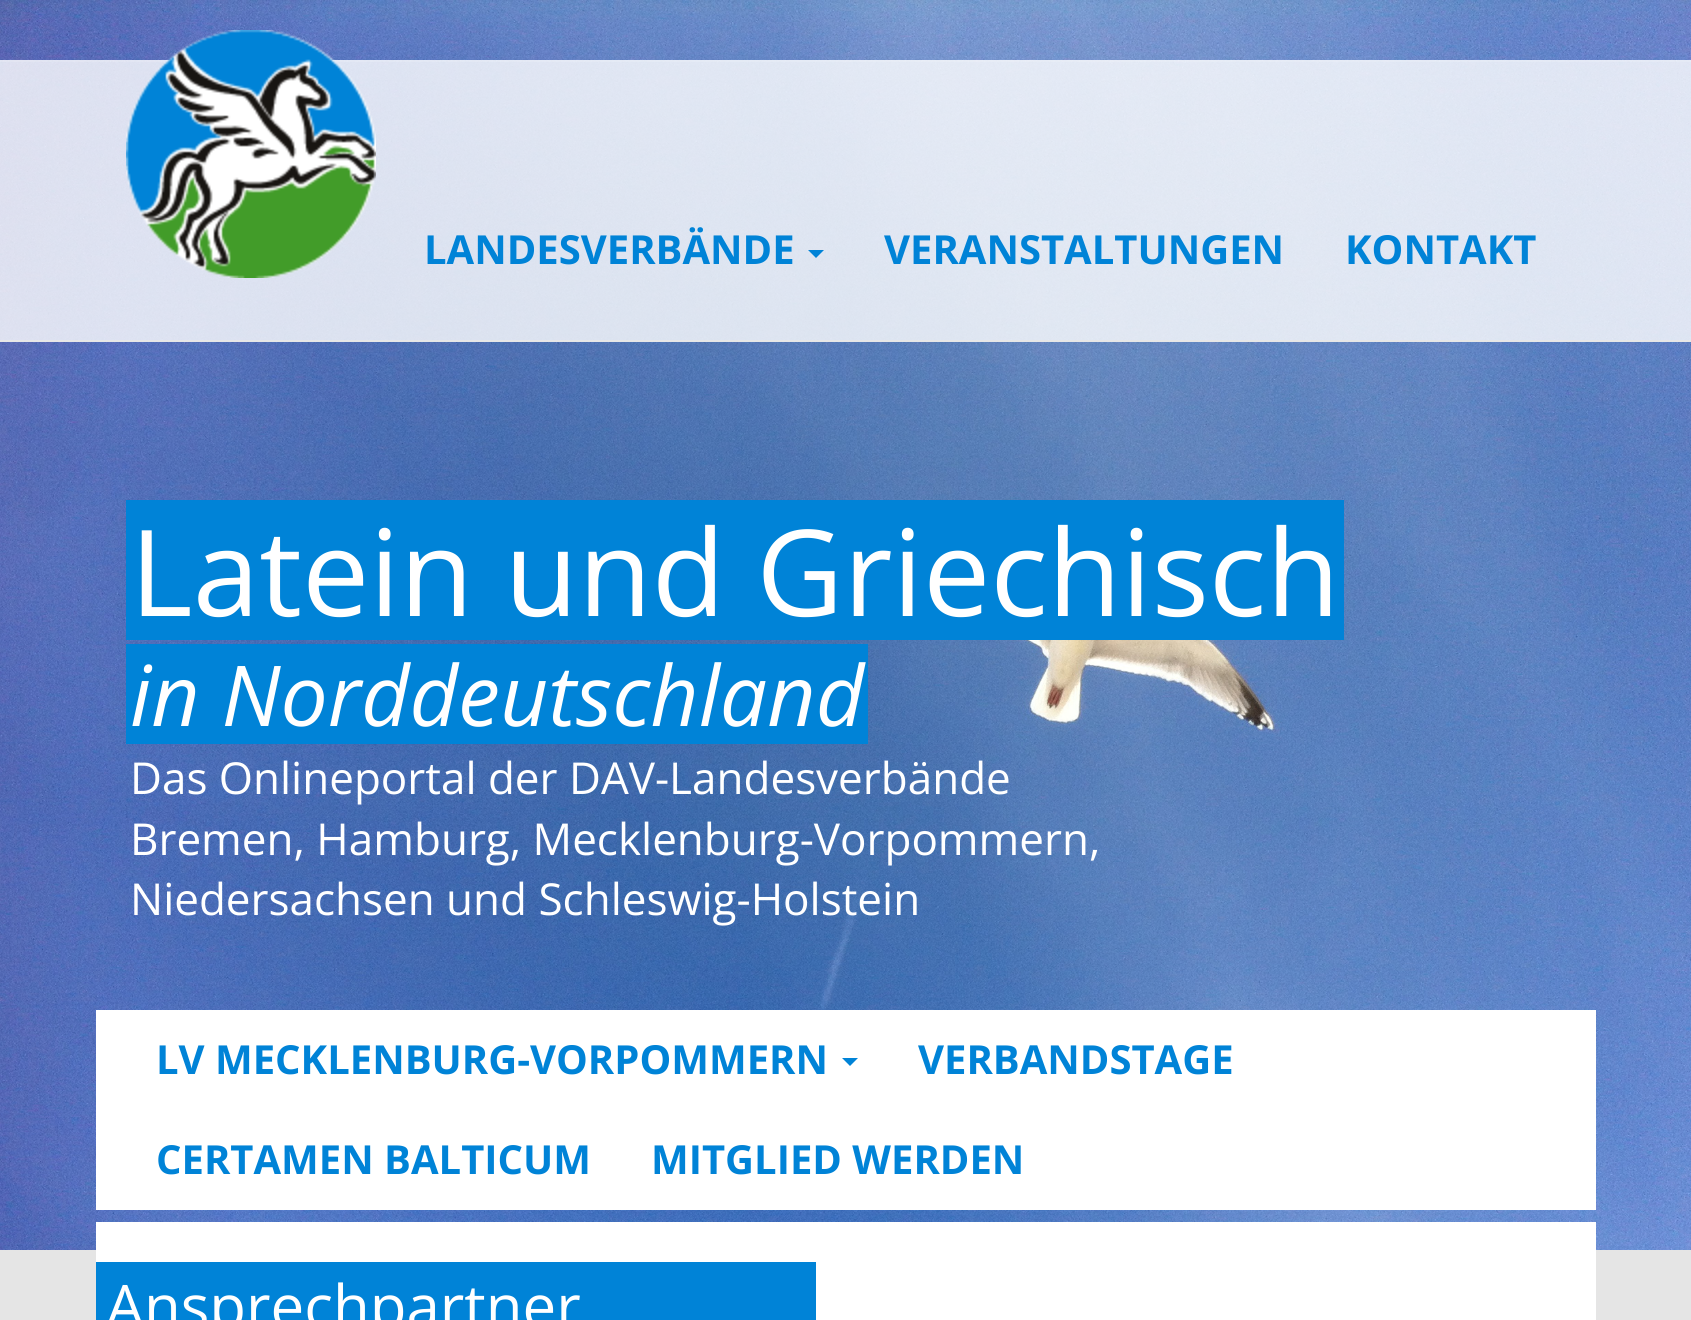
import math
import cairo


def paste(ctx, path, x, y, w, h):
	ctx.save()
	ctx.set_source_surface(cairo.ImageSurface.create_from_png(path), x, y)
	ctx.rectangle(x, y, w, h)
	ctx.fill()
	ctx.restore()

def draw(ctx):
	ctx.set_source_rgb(1, 1, 1)
	ctx.paint()
	paste(ctx, 'media/1.png', 0, 0, 1691, 1250)
	ctx.set_source_rgba(1, 1, 1, 0.8)
	ctx.rectangle(0, 60, 1691, 280)
	ctx.fill()
	ctx.set_source_rgba(1, 1, 1, 0.15)
	ctx.rectangle(0, 60, 1691, 2)
	ctx.fill()
	ctx.set_source_rgb(0.906, 0.906, 0.906)
	ctx.rectangle(0, 340, 1691, 2)
	ctx.fill()
	paste(ctx, 'media/2.png', 126, 30, 250, 248)
	ctx.select_font_face('Open Sans', cairo.FONT_SLANT_NORMAL, cairo.FONT_WEIGHT_BOLD)
	ctx.set_font_size(40)
	ctx.set_source_rgb(0, 0.514, 0.843)
	ctx.move_to(424, 264)
	ctx.show_text('LANDESVERBÄNDE')
	ctx.new_path()
	ctx.move_to(808, 250)
	ctx.line_to(824, 250)
	ctx.line_to(816, 258)
	ctx.close_path()
	ctx.fill()
	ctx.move_to(884, 264)
	ctx.show_text('VERANSTALTUNGEN')
	ctx.move_to(1345, 264)
	ctx.show_text('KONTAKT')
	ctx.rectangle(126, 500, 1218, 140)
	ctx.fill()
	ctx.select_font_face('Open Sans')
	ctx.set_font_size(120)
	ctx.set_source_rgb(1, 1, 1)
	ctx.move_to(130, 616)
	ctx.show_text('Latein und Griechisch')
	ctx.set_source_rgb(0, 0.514, 0.843)
	ctx.rectangle(126, 644, 742, 100)
	ctx.fill()
	ctx.select_font_face('Open Sans', cairo.FONT_SLANT_ITALIC)
	ctx.set_font_size(84)
	ctx.set_source_rgb(1, 1, 1)
	ctx.move_to(130, 726)
	ctx.show_text('in Norddeutschland')
	ctx.select_font_face('Open Sans')
	ctx.set_font_size(44)
	for x, y, s in [
		(130, 794, 'Das Onlineportal der DAV-Landesverbände'),
		(130, 855, 'Bremen, Hamburg, Mecklenburg-Vorpommern,'),
		(130, 915, 'Niedersachsen und Schleswig-Holstein'),
	]:
		ctx.move_to(x, y)
		ctx.show_text(s)
	ctx.rectangle(96, 1010, 1500, 200)
	ctx.fill()
	ctx.select_font_face('Open Sans', cairo.FONT_SLANT_NORMAL, cairo.FONT_WEIGHT_BOLD)
	ctx.set_font_size(40)
	ctx.set_source_rgb(0, 0.514, 0.843)
	ctx.move_to(156, 1074)
	ctx.show_text('LV MECKLENBURG-VORPOMMERN')
	ctx.new_path()
	ctx.move_to(842, 1058)
	ctx.line_to(858, 1058)
	ctx.line_to(850, 1066)
	ctx.close_path()
	ctx.fill()
	for x, y, s in [
		(918, 1074, 'VERBANDSTAGE'),
		(156, 1174, 'CERTAMEN BALTICUM'),
		(651, 1174, 'MITGLIED WERDEN'),
	]:
		ctx.move_to(x, y)
		ctx.show_text(s)
	ctx.set_source_rgb(0.898, 0.898, 0.898)
	ctx.rectangle(0, 1250, 1691, 70)
	ctx.fill()
	ctx.set_source_rgb(1, 1, 1)
	ctx.rectangle(96, 1222, 1500, 98)
	ctx.fill()
	ctx.set_source_rgb(0, 0.514, 0.843)
	ctx.rectangle(96, 1262, 720, 58)
	ctx.fill()
	ctx.select_font_face('Open Sans')
	ctx.set_font_size(60)
	ctx.set_source_rgb(1, 1, 1)
	ctx.move_to(106, 1328)
	ctx.show_text('Ansprechpartner')


surface = cairo.ImageSurface(cairo.FORMAT_RGB24, 1691, 1320)
ctx = cairo.Context(surface)
options = cairo.FontOptions()
options.set_hint_metrics(cairo.HINT_METRICS_OFF)
options.set_hint_style(cairo.HINT_STYLE_NONE)
ctx.set_font_options(options)
ctx.set_miter_limit(4)
draw(ctx)
surface.write_to_png('image.png')
